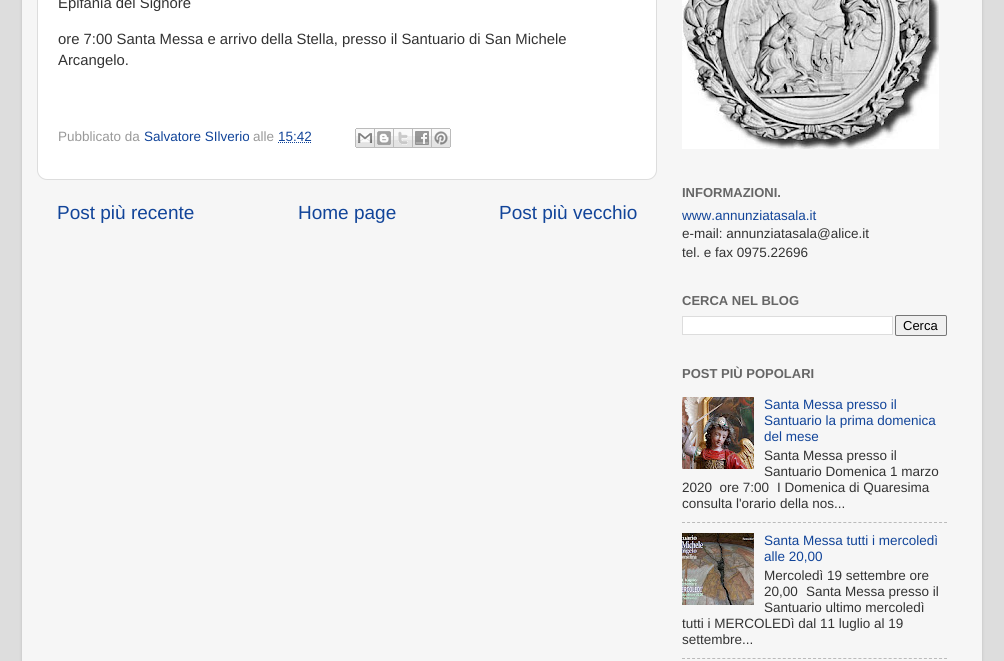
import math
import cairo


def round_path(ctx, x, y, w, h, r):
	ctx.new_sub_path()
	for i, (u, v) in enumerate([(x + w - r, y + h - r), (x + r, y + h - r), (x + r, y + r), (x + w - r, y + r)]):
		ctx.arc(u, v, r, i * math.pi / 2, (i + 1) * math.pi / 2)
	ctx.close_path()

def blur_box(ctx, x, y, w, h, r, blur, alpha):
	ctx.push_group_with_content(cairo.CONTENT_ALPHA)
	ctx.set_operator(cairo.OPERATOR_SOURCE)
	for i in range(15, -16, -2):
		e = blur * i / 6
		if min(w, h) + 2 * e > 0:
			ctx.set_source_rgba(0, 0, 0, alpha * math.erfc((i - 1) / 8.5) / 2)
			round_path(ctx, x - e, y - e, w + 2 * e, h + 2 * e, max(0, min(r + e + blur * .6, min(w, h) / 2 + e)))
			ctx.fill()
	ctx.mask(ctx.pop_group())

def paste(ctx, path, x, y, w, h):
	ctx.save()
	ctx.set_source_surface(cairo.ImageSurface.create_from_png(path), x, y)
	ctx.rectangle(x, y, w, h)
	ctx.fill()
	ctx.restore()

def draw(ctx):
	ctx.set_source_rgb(0.867, 0.867, 0.867)
	ctx.paint()
	ctx.set_source_rgb(0, 0, 0)
	blur_box(ctx, 22, -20, 960, 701, 15, 1.5, 0.15)
	ctx.set_source_rgb(0.961, 0.961, 0.961)
	ctx.rectangle(22, 0, 960, 661)
	ctx.fill()
	ctx.set_source_rgb(1, 1, 1)
	round_path(ctx, 37.5, -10.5, 619, 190, 9.5)
	ctx.fill_preserve()
	ctx.set_source_rgb(0.867, 0.867, 0.867)
	ctx.set_line_width(1)
	ctx.stroke()
	ctx.select_font_face('Liberation Sans')
	ctx.set_font_size(14.85)
	ctx.set_source_rgb(0.2, 0.2, 0.2)
	for x, y, s in [
		(58, 8, 'Epifania del Signore'),
		(58, 44, 'ore 7:00 Santa Messa e arrivo della Stella, presso il Santuario di San Michele'),
		(58, 65, 'Arcangelo.'),
	]:
		ctx.move_to(x, y)
		ctx.show_text(s)
	ctx.set_font_size(13.5)
	ctx.set_source_rgb(0.6, 0.6, 0.6)
	ctx.move_to(58, 141)
	ctx.show_text('Pubblicato da')
	ctx.set_source_rgb(0.067, 0.267, 0.6)
	ctx.move_to(144, 141)
	ctx.show_text('Salvatore SIlverio')
	ctx.set_source_rgb(0.6, 0.6, 0.6)
	ctx.move_to(253, 141)
	ctx.show_text('alle')
	ctx.set_source_rgb(0.067, 0.267, 0.6)
	ctx.move_to(278, 141)
	ctx.show_text('15:42')
	ctx.new_path()
	ctx.move_to(278, 142.5)
	ctx.line_to(311.5, 142.5)
	ctx.set_dash([1, 1])
	ctx.stroke()
	paste(ctx, 'media/1.png', 355, 128, 20, 20)
	paste(ctx, 'media/2.png', 375, 128, 19, 20)
	paste(ctx, 'media/3.png', 394, 128, 19, 20)
	paste(ctx, 'media/4.png', 413, 128, 19, 20)
	paste(ctx, 'media/5.png', 432, 128, 19, 20)
	ctx.set_font_size(19)
	for x, y, s in [
		(57, 219, 'Post più recente'),
		(298, 219, 'Home page'),
		(499, 219, 'Post più vecchio'),
	]:
		ctx.move_to(x, y)
		ctx.show_text(s)
	paste(ctx, 'media/6.png', 682, 0, 257, 149)
	ctx.select_font_face('Liberation Sans', cairo.FONT_SLANT_NORMAL, cairo.FONT_WEIGHT_BOLD)
	ctx.set_font_size(13)
	ctx.set_source_rgb(0.4, 0.4, 0.4)
	ctx.move_to(682, 197)
	ctx.show_text('INFORMAZIONI.')
	ctx.select_font_face('Liberation Sans')
	ctx.set_font_size(13.5)
	ctx.set_source_rgb(0.067, 0.267, 0.6)
	ctx.move_to(682, 220)
	ctx.show_text('www.annunziatasala.it')
	ctx.set_source_rgb(0.2, 0.2, 0.2)
	ctx.move_to(682, 238)
	ctx.show_text('e-mail: annunziatasala@alice.it')
	ctx.move_to(682, 257)
	ctx.show_text('tel. e fax 0975.22696')
	ctx.select_font_face('Liberation Sans', cairo.FONT_SLANT_NORMAL, cairo.FONT_WEIGHT_BOLD)
	ctx.set_font_size(13)
	ctx.set_source_rgb(0.4, 0.4, 0.4)
	ctx.move_to(682, 305)
	ctx.show_text('CERCA NEL BLOG')
	ctx.set_source_rgb(1, 1, 1)
	ctx.rectangle(682.5, 316.5, 210, 18)
	ctx.fill_preserve()
	ctx.set_source_rgb(0.867, 0.867, 0.867)
	ctx.set_dash([])
	ctx.stroke()
	ctx.set_source_rgb(0.937, 0.937, 0.937)
	round_path(ctx, 895.5, 315.5, 51, 20, 1.5)
	ctx.fill_preserve()
	ctx.set_source_rgb(0.463, 0.463, 0.463)
	ctx.stroke()
	ctx.select_font_face('Liberation Sans')
	ctx.set_source_rgb(0, 0, 0)
	ctx.move_to(903, 330)
	ctx.show_text('Cerca')
	ctx.select_font_face('Liberation Sans', cairo.FONT_SLANT_NORMAL, cairo.FONT_WEIGHT_BOLD)
	ctx.set_source_rgb(0.4, 0.4, 0.4)
	ctx.move_to(682, 378)
	ctx.show_text('POST PIÙ POPOLARI')
	paste(ctx, 'media/7.png', 682, 397, 72, 72)
	ctx.select_font_face('Liberation Sans')
	ctx.set_font_size(13.5)
	ctx.set_source_rgb(0.067, 0.267, 0.6)
	for x, y, s in [
		(764, 409, 'Santa Messa presso il'),
		(764, 425, 'Santuario la prima domenica'),
		(764, 441, 'del mese'),
	]:
		ctx.move_to(x, y)
		ctx.show_text(s)
	ctx.set_source_rgb(0.2, 0.2, 0.2)
	for x, y, s in [
		(764, 460, 'Santa Messa presso il'),
		(764, 476, 'Santuario Domenica 1 marzo'),
		(682, 492, '2020  ore 7:00'),
		(777, 492, 'I Domenica di Quaresima'),
		(682, 508, 'consulta l\'orario della nos...'),
	]:
		ctx.move_to(x, y)
		ctx.show_text(s)
	ctx.new_path()
	ctx.move_to(682, 522.5)
	ctx.line_to(947, 522.5)
	ctx.set_source_rgb(0.733, 0.733, 0.733)
	ctx.set_dash([3, 2.04])
	ctx.stroke()
	paste(ctx, 'media/8.png', 682, 533, 72, 72)
	ctx.set_source_rgb(0.067, 0.267, 0.6)
	ctx.move_to(764, 545)
	ctx.show_text('Santa Messa tutti i mercoledì')
	ctx.move_to(764, 561)
	ctx.show_text('alle 20,00')
	ctx.set_source_rgb(0.2, 0.2, 0.2)
	for x, y, s in [
		(764, 580, 'Mercoledì 19 settembre ore'),
		(764, 596, '20,00'),
		(806, 596, 'Santa Messa presso il'),
		(764, 612, 'Santuario ultimo mercoledì'),
		(682, 628, 'tutti i MERCOLEDì dal 11 luglio al 19'),
		(682, 644, 'settembre...'),
	]:
		ctx.move_to(x, y)
		ctx.show_text(s)
	ctx.new_path()
	ctx.move_to(682, 658.5)
	ctx.line_to(947, 658.5)
	ctx.set_source_rgb(0.733, 0.733, 0.733)
	ctx.stroke()


surface = cairo.ImageSurface(cairo.FORMAT_RGB24, 1004, 661)
ctx = cairo.Context(surface)
options = cairo.FontOptions()
options.set_hint_metrics(cairo.HINT_METRICS_OFF)
options.set_hint_style(cairo.HINT_STYLE_NONE)
ctx.set_font_options(options)
ctx.set_miter_limit(4)
draw(ctx)
surface.write_to_png('image.png')
